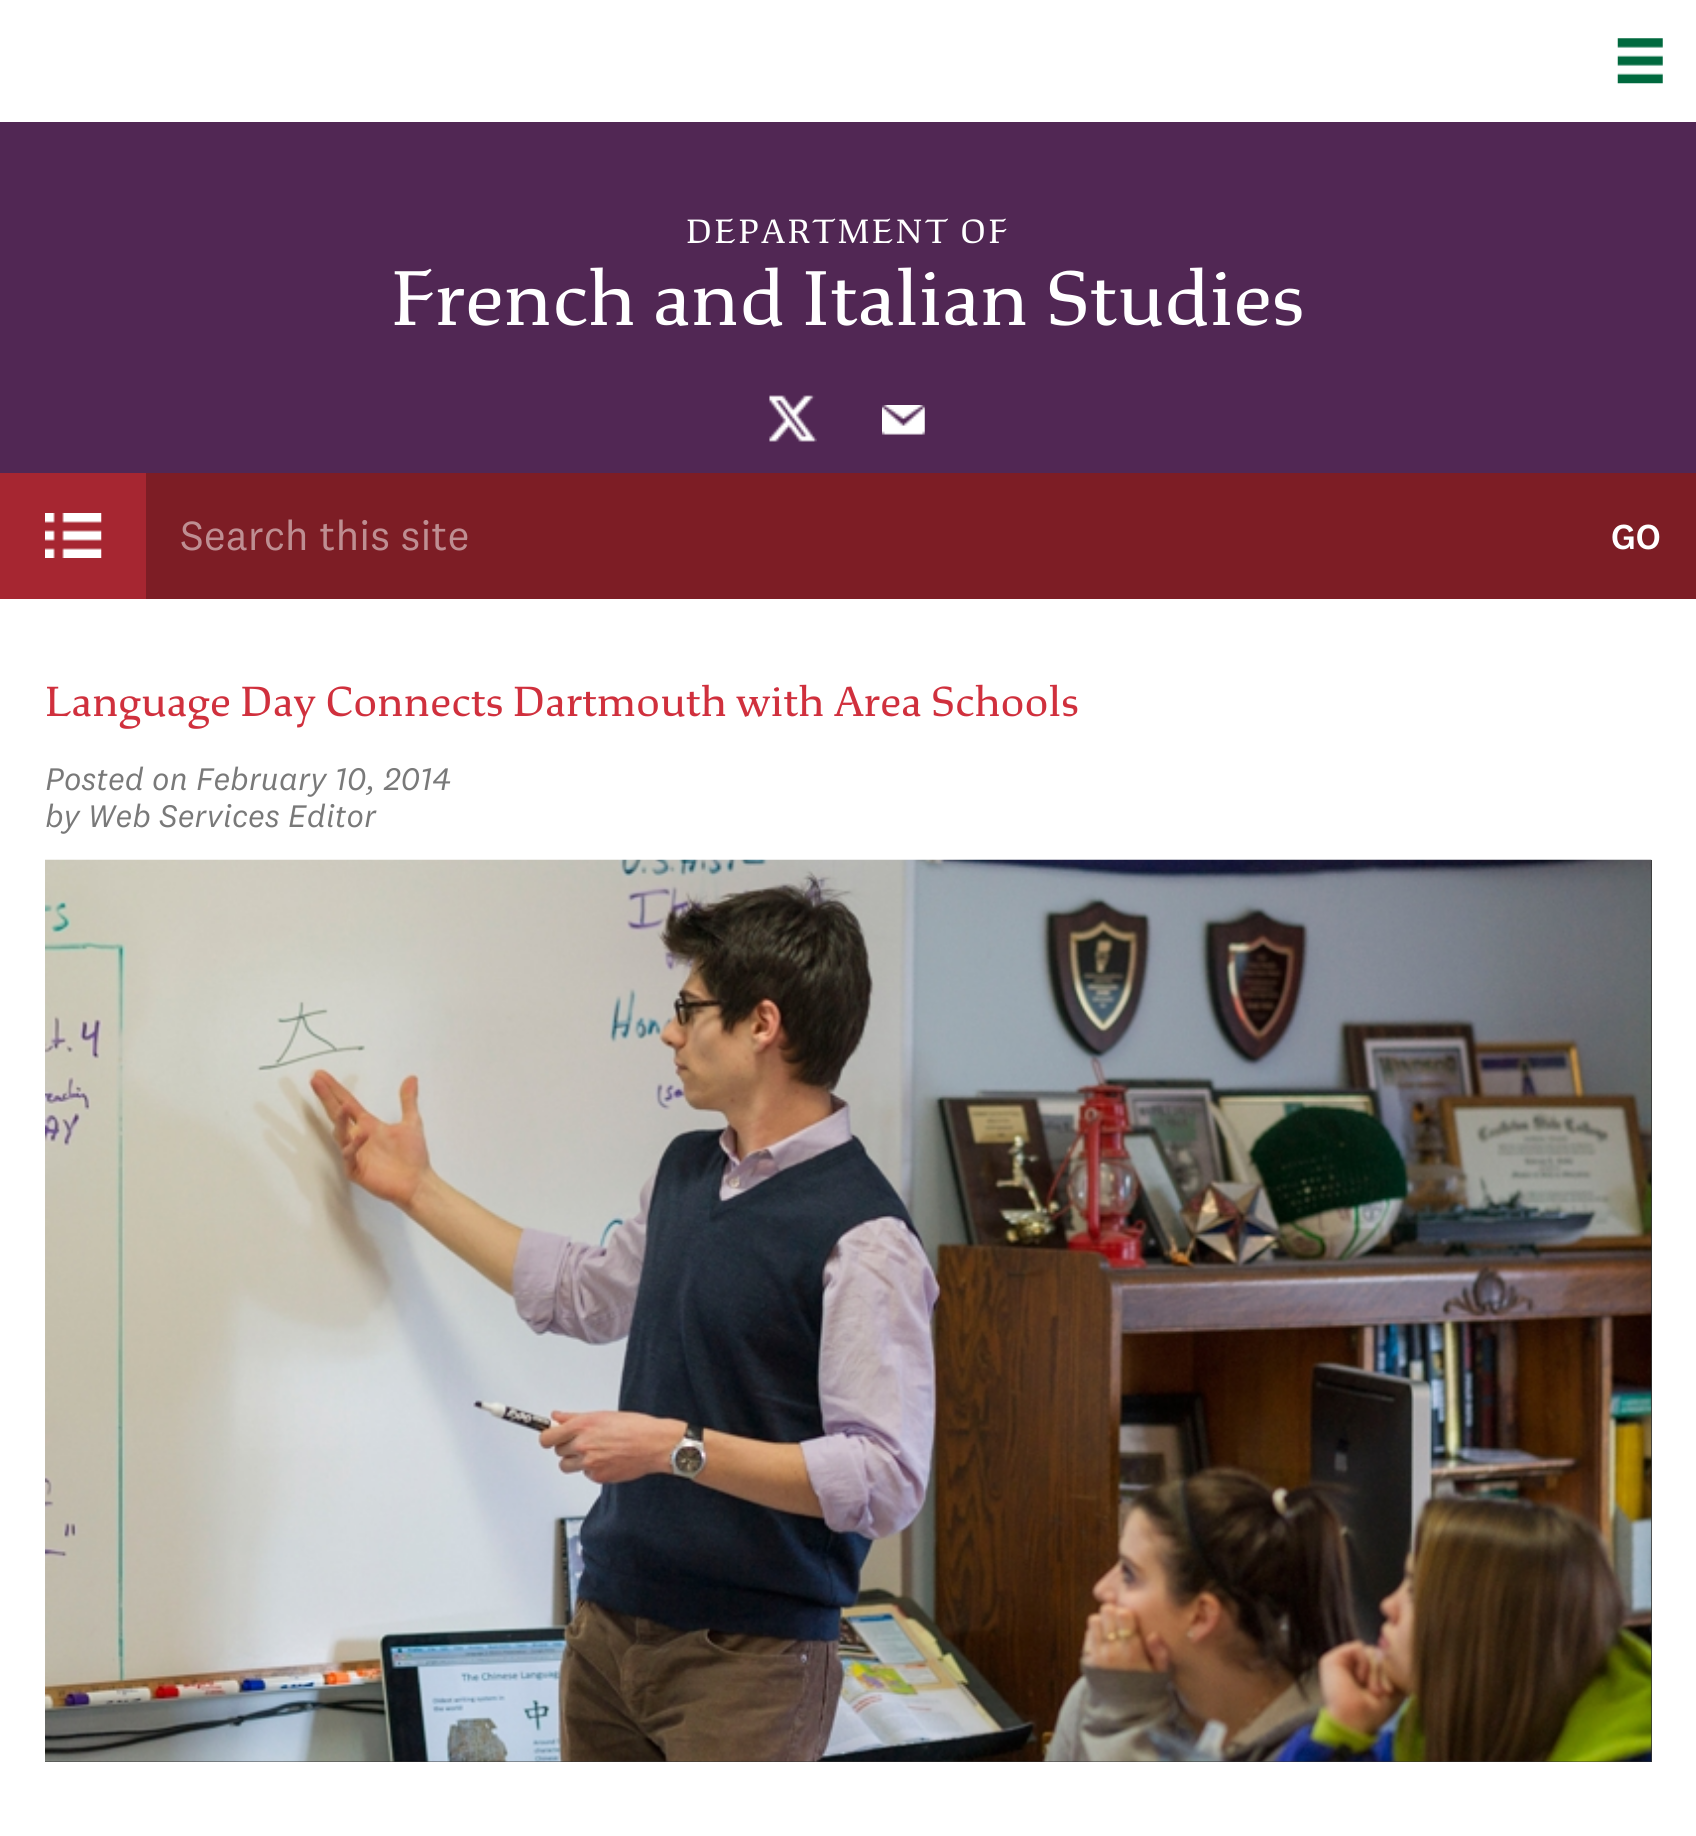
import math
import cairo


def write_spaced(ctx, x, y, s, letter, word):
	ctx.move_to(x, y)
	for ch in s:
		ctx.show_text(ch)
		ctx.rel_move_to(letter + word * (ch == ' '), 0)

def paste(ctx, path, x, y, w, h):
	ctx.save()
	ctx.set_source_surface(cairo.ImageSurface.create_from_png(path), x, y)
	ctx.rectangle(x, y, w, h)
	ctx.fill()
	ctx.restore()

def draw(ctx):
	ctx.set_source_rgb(1, 1, 1)
	ctx.paint()
	paste(ctx, 'media/1.png', 1617, 38, 46, 46)
	ctx.set_source_rgb(0.318, 0.153, 0.329)
	ctx.rectangle(0, 122, 1696, 351)
	ctx.fill()
	ctx.select_font_face('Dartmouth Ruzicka')
	ctx.set_font_size(36)
	ctx.set_source_rgb(1, 1, 1)
	write_spaced(ctx, 686, 243, 'DEPARTMENT OF', 2.25, 0)
	ctx.set_font_size(82.75)
	ctx.move_to(391, 325)
	ctx.show_text('French and Italian Studies')
	paste(ctx, 'media/2.png', 769, 395, 48, 47)
	paste(ctx, 'media/3.png', 882, 405, 43, 30)
	ctx.set_source_rgb(0.651, 0.149, 0.192)
	ctx.rectangle(0, 473, 146, 126)
	ctx.fill()
	paste(ctx, 'media/4.png', 45, 513, 57, 45)
	ctx.set_source_rgb(0.49, 0.114, 0.145)
	ctx.rectangle(146, 473, 1550, 126)
	ctx.fill()
	ctx.select_font_face('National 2')
	ctx.set_font_size(42.25)
	ctx.set_source_rgb(0.745, 0.557, 0.573)
	ctx.move_to(180, 550)
	ctx.show_text('Search this site')
	ctx.select_font_face('National 2 Medium')
	ctx.set_font_size(36)
	ctx.set_source_rgb(1, 1, 1)
	ctx.move_to(1611, 549)
	ctx.show_text('GO')
	ctx.select_font_face('Dartmouth Ruzicka')
	ctx.set_font_size(45)
	ctx.set_source_rgb(0.816, 0.188, 0.239)
	ctx.move_to(45, 716)
	ctx.show_text('Language Day Connects Dartmouth with Area Schools')
	ctx.select_font_face('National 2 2')
	ctx.set_font_size(32.4)
	ctx.set_source_rgb(0.475, 0.475, 0.475)
	ctx.move_to(45, 790)
	ctx.show_text('Posted on February 10, 2014')
	ctx.move_to(45, 827)
	ctx.show_text('by Web Services Editor')
	ctx.set_source_rgb(0.2, 0.2, 0.2)
	ctx.rectangle(45, 860, 1607, 902)
	ctx.fill()
	paste(ctx, 'media/5.png', 45, 859, 1607, 903)


surface = cairo.ImageSurface(cairo.FORMAT_RGB24, 1696, 1836)
ctx = cairo.Context(surface)
options = cairo.FontOptions()
options.set_hint_metrics(cairo.HINT_METRICS_OFF)
options.set_hint_style(cairo.HINT_STYLE_NONE)
ctx.set_font_options(options)
ctx.set_miter_limit(4)
draw(ctx)
surface.write_to_png('image.png')
